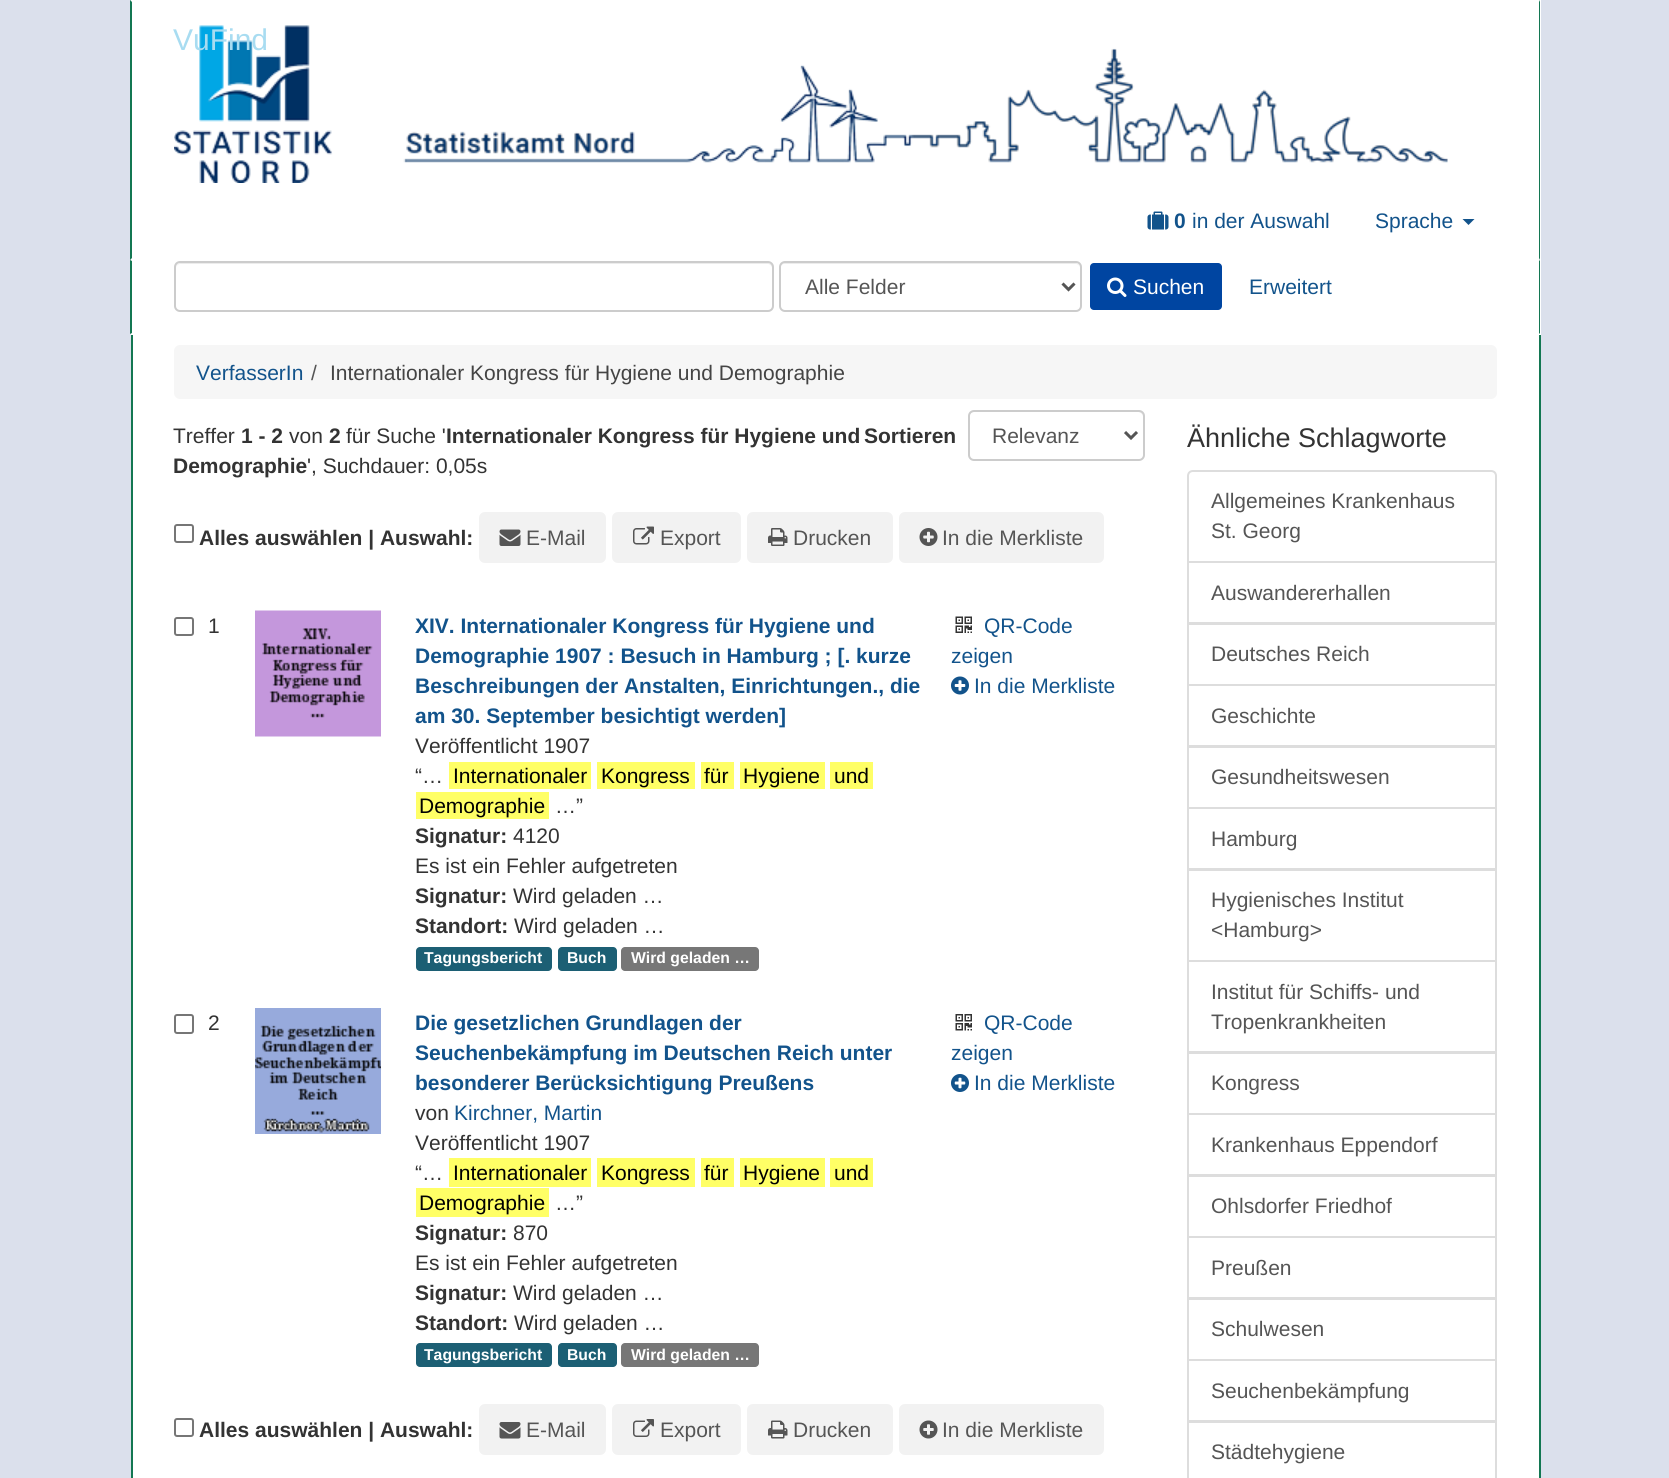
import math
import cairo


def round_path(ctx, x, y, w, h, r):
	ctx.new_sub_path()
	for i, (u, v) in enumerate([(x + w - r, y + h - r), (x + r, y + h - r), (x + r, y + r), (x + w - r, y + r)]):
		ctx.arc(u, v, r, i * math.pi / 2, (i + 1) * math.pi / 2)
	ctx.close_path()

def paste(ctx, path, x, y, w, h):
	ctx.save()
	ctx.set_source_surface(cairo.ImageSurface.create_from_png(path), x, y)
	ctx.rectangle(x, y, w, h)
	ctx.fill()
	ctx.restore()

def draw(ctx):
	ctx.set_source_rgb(0.859, 0.878, 0.925)
	ctx.paint()
	ctx.set_source_rgb(1, 1, 1)
	ctx.rectangle(131, 0, 1410, 335)
	ctx.fill()
	ctx.set_source_rgb(0.075, 0.467, 0.322)
	ctx.new_path()
	ctx.move_to(1540, 0)
	ctx.line_to(1540, 260)
	ctx.line_to(1539, 258)
	ctx.line_to(1539, 2)
	ctx.close_path()
	ctx.fill()
	ctx.new_path()
	ctx.move_to(130, 260)
	ctx.line_to(130, 0)
	ctx.line_to(132, 2)
	ctx.line_to(132, 258)
	ctx.close_path()
	ctx.fill()
	paste(ctx, 'media/1.png', 174, 25, 1274, 158)
	ctx.select_font_face('Liberation Sans')
	ctx.set_font_size(30)
	ctx.set_source_rgb(0.659, 0.863, 0.945)
	ctx.move_to(173, 50)
	ctx.show_text('VuFind')
	paste(ctx, 'media/2.png', 1147, 211, 22, 19)
	ctx.select_font_face('Liberation Sans', cairo.FONT_SLANT_NORMAL, cairo.FONT_WEIGHT_BOLD)
	ctx.set_font_size(21)
	ctx.set_source_rgb(0.071, 0.325, 0.545)
	ctx.move_to(1174, 228)
	ctx.show_text('0')
	ctx.select_font_face('Liberation Sans')
	ctx.move_to(1192, 228)
	ctx.show_text('in der Auswahl')
	ctx.move_to(1375, 228)
	ctx.show_text('Sprache')
	ctx.new_path()
	ctx.move_to(1462.5, 219)
	ctx.line_to(1474.5, 219)
	ctx.line_to(1468.5, 225)
	ctx.close_path()
	ctx.fill()
	ctx.set_source_rgb(0.075, 0.467, 0.322)
	ctx.new_path()
	ctx.move_to(1540, 260)
	ctx.line_to(1540, 334)
	ctx.line_to(1539, 333)
	ctx.line_to(1539, 261)
	ctx.close_path()
	ctx.fill()
	ctx.new_path()
	ctx.move_to(130, 334)
	ctx.line_to(130, 260)
	ctx.line_to(132, 261)
	ctx.line_to(132, 333)
	ctx.close_path()
	ctx.fill()
	ctx.set_source_rgb(0.925, 0.925, 0.925)
	ctx.new_path()
	ctx.move_to(180, 264)
	ctx.line_to(768, 264)
	ctx.curve_to(770, 264, 772, 266, 772, 268)
	ctx.line_to(772, 309)
	ctx.curve_to(773, 308, 773, 307, 773, 306)
	ctx.line_to(773, 268)
	ctx.curve_to(773, 265, 771, 263, 768, 263)
	ctx.line_to(181, 263)
	ctx.curve_to(178, 263, 176, 265, 176, 268)
	ctx.curve_to(176, 266, 178, 264, 180, 264)
	ctx.close_path()
	ctx.fill()
	round_path(ctx, 175, 262, 598, 49, 5)
	ctx.set_source_rgb(0.8, 0.8, 0.8)
	ctx.stroke()
	ctx.set_source_rgb(0.925, 0.925, 0.925)
	ctx.new_path()
	ctx.move_to(784, 264)
	ctx.line_to(1076, 264)
	ctx.curve_to(1078, 264, 1080, 266, 1080, 268)
	ctx.curve_to(1080, 265, 1078, 263, 1075, 263)
	ctx.line_to(785, 263)
	ctx.curve_to(782, 263, 780, 265, 780, 268)
	ctx.curve_to(780, 266, 782, 264, 784, 264)
	ctx.close_path()
	ctx.fill()
	round_path(ctx, 780, 262, 301, 49, 5)
	ctx.set_source_rgb(0.8, 0.8, 0.8)
	ctx.stroke()
	ctx.new_path()
	ctx.move_to(1062.5, 283.5)
	ctx.line_to(1068.5, 289.5)
	ctx.line_to(1074.5, 283.5)
	ctx.set_source_rgb(0.333, 0.333, 0.333)
	ctx.set_line_width(3)
	ctx.stroke()
	ctx.move_to(805, 294)
	ctx.show_text('Alle Felder')
	ctx.set_source_rgb(0, 0.271, 0.631)
	round_path(ctx, 1089, 262, 134, 49, 5)
	ctx.fill_preserve()
	ctx.set_source_rgb(1, 1, 1)
	ctx.set_line_width(2)
	ctx.stroke()
	paste(ctx, 'media/3.png', 1107, 277, 20, 20)
	ctx.move_to(1133, 294)
	ctx.show_text('Suchen')
	ctx.set_source_rgb(0.071, 0.325, 0.545)
	ctx.move_to(1249, 294)
	ctx.show_text('Erweitert')
	ctx.set_source_rgb(1, 1, 1)
	ctx.rectangle(133, 335, 1406, 1143)
	ctx.fill()
	ctx.set_source_rgb(0.075, 0.467, 0.322)
	ctx.rectangle(1539, 335, 2, 1143)
	ctx.rectangle(131, 335, 2, 1143)
	ctx.fill()
	ctx.set_source_rgb(0.961, 0.961, 0.961)
	round_path(ctx, 174, 345, 1323, 54, 6)
	ctx.fill()
	ctx.set_source_rgb(0.071, 0.325, 0.545)
	ctx.move_to(196, 380)
	ctx.show_text('VerfasserIn')
	ctx.set_source_rgb(0.333, 0.333, 0.333)
	ctx.move_to(311, 380)
	ctx.show_text('/')
	ctx.set_source_rgb(0.267, 0.267, 0.267)
	ctx.move_to(330, 380)
	ctx.show_text('Internationaler Kongress für Hygiene und Demographie')
	ctx.set_source_rgb(0.2, 0.2, 0.2)
	ctx.move_to(173, 443)
	ctx.show_text('Treffer')
	ctx.select_font_face('Liberation Sans', cairo.FONT_SLANT_NORMAL, cairo.FONT_WEIGHT_BOLD)
	ctx.move_to(241, 443)
	ctx.show_text('1 - 2')
	ctx.select_font_face('Liberation Sans')
	ctx.move_to(289, 443)
	ctx.show_text('von')
	ctx.select_font_face('Liberation Sans', cairo.FONT_SLANT_NORMAL, cairo.FONT_WEIGHT_BOLD)
	ctx.move_to(329, 443)
	ctx.show_text('2')
	ctx.select_font_face('Liberation Sans')
	ctx.move_to(346, 443)
	ctx.show_text('für Suche \'')
	ctx.select_font_face('Liberation Sans', cairo.FONT_SLANT_NORMAL, cairo.FONT_WEIGHT_BOLD)
	ctx.move_to(446, 443)
	ctx.show_text('Internationaler Kongress für Hygiene und')
	ctx.move_to(173, 473)
	ctx.show_text('Demographie')
	ctx.select_font_face('Liberation Sans')
	ctx.move_to(307, 473)
	ctx.show_text('\', Suchdauer: 0,05s')
	ctx.select_font_face('Liberation Sans', cairo.FONT_SLANT_NORMAL, cairo.FONT_WEIGHT_BOLD)
	ctx.move_to(864, 443)
	ctx.show_text('Sortieren')
	ctx.set_source_rgb(0.925, 0.925, 0.925)
	ctx.new_path()
	ctx.move_to(974, 412)
	ctx.line_to(1138, 412)
	ctx.curve_to(1141, 412, 1143, 415, 1143, 417)
	ctx.curve_to(1143, 414, 1142, 412, 1139, 411)
	ctx.line_to(974, 411)
	ctx.curve_to(971, 411, 969, 414, 969, 417)
	ctx.curve_to(969, 415, 971, 412, 974, 412)
	ctx.close_path()
	ctx.fill()
	round_path(ctx, 969, 411, 175, 49, 5)
	ctx.set_source_rgb(0.8, 0.8, 0.8)
	ctx.stroke()
	ctx.new_path()
	ctx.move_to(1125, 432)
	ctx.line_to(1131, 438)
	ctx.line_to(1137, 432)
	ctx.set_source_rgb(0.333, 0.333, 0.333)
	ctx.set_line_width(3)
	ctx.stroke()
	ctx.select_font_face('Liberation Sans')
	ctx.move_to(992, 443)
	ctx.show_text('Relevanz')
	round_path(ctx, 175, 525, 18, 17, 2)
	ctx.set_source_rgb(0.463, 0.463, 0.463)
	ctx.set_line_width(2)
	ctx.stroke()
	ctx.select_font_face('Liberation Sans', cairo.FONT_SLANT_NORMAL, cairo.FONT_WEIGHT_BOLD)
	ctx.set_source_rgb(0.2, 0.2, 0.2)
	ctx.move_to(199, 545)
	ctx.show_text('Alles auswählen | Auswahl:')
	ctx.set_source_rgb(0.949, 0.949, 0.949)
	round_path(ctx, 479, 512, 127, 51, 6)
	ctx.fill()
	paste(ctx, 'media/4.png', 499, 529, 22, 17)
	ctx.select_font_face('Liberation Sans')
	ctx.set_source_rgb(0.333, 0.333, 0.333)
	ctx.move_to(526, 545)
	ctx.show_text('E-Mail')
	ctx.set_source_rgb(0.949, 0.949, 0.949)
	round_path(ctx, 612, 512, 129, 51, 6)
	ctx.fill()
	paste(ctx, 'media/5.png', 633, 526, 21, 19)
	ctx.set_source_rgb(0.333, 0.333, 0.333)
	ctx.move_to(660, 545)
	ctx.show_text('Export')
	ctx.set_source_rgb(0.949, 0.949, 0.949)
	round_path(ctx, 747, 512, 146, 51, 6)
	ctx.fill()
	paste(ctx, 'media/6.png', 768, 528, 20, 18)
	ctx.set_source_rgb(0.333, 0.333, 0.333)
	ctx.move_to(793, 545)
	ctx.show_text('Drucken')
	ctx.set_source_rgb(0.949, 0.949, 0.949)
	round_path(ctx, 899, 512, 205, 51, 6)
	ctx.fill()
	paste(ctx, 'media/7.png', 919, 528, 19, 18)
	ctx.set_source_rgb(0.333, 0.333, 0.333)
	ctx.move_to(942, 545)
	ctx.show_text('In die Merkliste')
	round_path(ctx, 175, 618, 18, 17, 2)
	ctx.set_source_rgb(0.463, 0.463, 0.463)
	ctx.stroke()
	ctx.set_source_rgb(0.2, 0.2, 0.2)
	ctx.move_to(208, 633)
	ctx.show_text('1')
	paste(ctx, 'media/8.png', 255, 610, 126, 127)
	ctx.select_font_face('Liberation Sans', cairo.FONT_SLANT_NORMAL, cairo.FONT_WEIGHT_BOLD)
	ctx.set_source_rgb(0.071, 0.325, 0.545)
	for x, y, s in [
		(415, 633, 'XIV. Internationaler Kongress für Hygiene und'),
		(415, 663, 'Demographie 1907 : Besuch in Hamburg ; [. kurze'),
		(415, 693, 'Beschreibungen der Anstalten, Einrichtungen., die'),
		(415, 723, 'am 30. September besichtigt werden]'),
	]:
		ctx.move_to(x, y)
		ctx.show_text(s)
	ctx.select_font_face('Liberation Sans')
	ctx.set_source_rgb(0.2, 0.2, 0.2)
	ctx.move_to(415, 753)
	ctx.show_text('Veröffentlicht 1907')
	ctx.move_to(415, 783)
	ctx.show_text('“…')
	ctx.set_source_rgb(1, 1, 0.4)
	ctx.rectangle(449, 762, 142, 27)
	ctx.fill()
	ctx.set_source_rgb(0, 0, 0)
	ctx.move_to(453, 783)
	ctx.show_text('Internationaler')
	ctx.set_source_rgb(1, 1, 0.4)
	ctx.rectangle(597, 762, 98, 27)
	ctx.fill()
	ctx.set_source_rgb(0, 0, 0)
	ctx.move_to(601, 783)
	ctx.show_text('Kongress')
	ctx.set_source_rgb(1, 1, 0.4)
	ctx.rectangle(701, 762, 33, 27)
	ctx.fill()
	ctx.set_source_rgb(0, 0, 0)
	ctx.move_to(704, 783)
	ctx.show_text('für')
	ctx.set_source_rgb(1, 1, 0.4)
	ctx.rectangle(740, 762, 85, 27)
	ctx.fill()
	ctx.set_source_rgb(0, 0, 0)
	ctx.move_to(743, 783)
	ctx.show_text('Hygiene')
	ctx.set_source_rgb(1, 1, 0.4)
	ctx.rectangle(830, 762, 43, 27)
	ctx.fill()
	ctx.set_source_rgb(0, 0, 0)
	ctx.move_to(834, 783)
	ctx.show_text('und')
	ctx.set_source_rgb(1, 1, 0.4)
	ctx.rectangle(416, 792, 133, 27)
	ctx.fill()
	ctx.set_source_rgb(0, 0, 0)
	ctx.move_to(419, 813)
	ctx.show_text('Demographie')
	ctx.set_source_rgb(0.2, 0.2, 0.2)
	ctx.move_to(555, 813)
	ctx.show_text('…”')
	ctx.select_font_face('Liberation Sans', cairo.FONT_SLANT_NORMAL, cairo.FONT_WEIGHT_BOLD)
	ctx.move_to(415, 843)
	ctx.show_text('Signatur:')
	ctx.select_font_face('Liberation Sans')
	ctx.move_to(513, 843)
	ctx.show_text('4120')
	ctx.move_to(415, 873)
	ctx.show_text('Es ist ein Fehler aufgetreten')
	ctx.select_font_face('Liberation Sans', cairo.FONT_SLANT_NORMAL, cairo.FONT_WEIGHT_BOLD)
	ctx.move_to(415, 903)
	ctx.show_text('Signatur:')
	ctx.select_font_face('Liberation Sans')
	ctx.move_to(513, 903)
	ctx.show_text('Wird geladen …')
	ctx.select_font_face('Liberation Sans', cairo.FONT_SLANT_NORMAL, cairo.FONT_WEIGHT_BOLD)
	ctx.move_to(415, 933)
	ctx.show_text('Standort:')
	ctx.select_font_face('Liberation Sans')
	ctx.move_to(514, 933)
	ctx.show_text('Wird geladen …')
	ctx.set_source_rgb(0.11, 0.373, 0.455)
	round_path(ctx, 416, 947, 136, 24, 4)
	ctx.fill()
	ctx.select_font_face('Liberation Sans', cairo.FONT_SLANT_NORMAL, cairo.FONT_WEIGHT_BOLD)
	ctx.set_font_size(15.75)
	ctx.set_source_rgb(1, 1, 1)
	ctx.move_to(424, 963)
	ctx.show_text('Tagungsbericht')
	ctx.set_source_rgb(0.11, 0.373, 0.455)
	round_path(ctx, 558, 947, 59, 24, 4)
	ctx.fill()
	ctx.set_source_rgb(1, 1, 1)
	ctx.move_to(567, 963)
	ctx.show_text('Buch')
	ctx.set_source_rgb(0.467, 0.467, 0.467)
	round_path(ctx, 621, 947, 138, 24, 4)
	ctx.fill()
	ctx.set_source_rgb(1, 1, 1)
	ctx.move_to(631, 963)
	ctx.show_text('Wird geladen …')
	paste(ctx, 'media/9.png', 955, 616, 17, 17)
	ctx.select_font_face('Liberation Sans')
	ctx.set_font_size(21)
	ctx.set_source_rgb(0.071, 0.325, 0.545)
	ctx.move_to(984, 633)
	ctx.show_text('QR-Code')
	ctx.move_to(951, 663)
	ctx.show_text('zeigen')
	paste(ctx, 'media/10.png', 951, 676, 18, 19)
	ctx.move_to(974, 693)
	ctx.show_text('In die Merkliste')
	round_path(ctx, 175, 1015, 18, 18, 2)
	ctx.set_source_rgb(0.463, 0.463, 0.463)
	ctx.stroke()
	ctx.set_source_rgb(0.2, 0.2, 0.2)
	ctx.move_to(208, 1030)
	ctx.show_text('2')
	paste(ctx, 'media/11.png', 255, 1008, 126, 126)
	ctx.select_font_face('Liberation Sans', cairo.FONT_SLANT_NORMAL, cairo.FONT_WEIGHT_BOLD)
	ctx.set_source_rgb(0.071, 0.325, 0.545)
	for x, y, s in [
		(415, 1030, 'Die gesetzlichen Grundlagen der'),
		(415, 1060, 'Seuchenbekämpfung im Deutschen Reich unter'),
		(415, 1090, 'besonderer Berücksichtigung Preußens'),
	]:
		ctx.move_to(x, y)
		ctx.show_text(s)
	ctx.select_font_face('Liberation Sans')
	ctx.set_source_rgb(0.2, 0.2, 0.2)
	ctx.move_to(415, 1120)
	ctx.show_text('von')
	ctx.set_source_rgb(0.071, 0.325, 0.545)
	ctx.move_to(454, 1120)
	ctx.show_text('Kirchner, Martin')
	ctx.set_source_rgb(0.2, 0.2, 0.2)
	ctx.move_to(415, 1150)
	ctx.show_text('Veröffentlicht 1907')
	ctx.move_to(415, 1180)
	ctx.show_text('“…')
	ctx.set_source_rgb(1, 1, 0.4)
	ctx.rectangle(449, 1158, 142, 29)
	ctx.fill()
	ctx.set_source_rgb(0, 0, 0)
	ctx.move_to(453, 1180)
	ctx.show_text('Internationaler')
	ctx.set_source_rgb(1, 1, 0.4)
	ctx.rectangle(597, 1158, 98, 29)
	ctx.fill()
	ctx.set_source_rgb(0, 0, 0)
	ctx.move_to(601, 1180)
	ctx.show_text('Kongress')
	ctx.set_source_rgb(1, 1, 0.4)
	ctx.rectangle(701, 1158, 33, 29)
	ctx.fill()
	ctx.set_source_rgb(0, 0, 0)
	ctx.move_to(704, 1180)
	ctx.show_text('für')
	ctx.set_source_rgb(1, 1, 0.4)
	ctx.rectangle(740, 1158, 85, 29)
	ctx.fill()
	ctx.set_source_rgb(0, 0, 0)
	ctx.move_to(743, 1180)
	ctx.show_text('Hygiene')
	ctx.set_source_rgb(1, 1, 0.4)
	ctx.rectangle(830, 1158, 43, 29)
	ctx.fill()
	ctx.set_source_rgb(0, 0, 0)
	ctx.move_to(834, 1180)
	ctx.show_text('und')
	ctx.set_source_rgb(1, 1, 0.4)
	ctx.rectangle(416, 1188, 133, 29)
	ctx.fill()
	ctx.set_source_rgb(0, 0, 0)
	ctx.move_to(419, 1210)
	ctx.show_text('Demographie')
	ctx.set_source_rgb(0.2, 0.2, 0.2)
	ctx.move_to(555, 1210)
	ctx.show_text('…”')
	ctx.select_font_face('Liberation Sans', cairo.FONT_SLANT_NORMAL, cairo.FONT_WEIGHT_BOLD)
	ctx.move_to(415, 1240)
	ctx.show_text('Signatur:')
	ctx.select_font_face('Liberation Sans')
	ctx.move_to(513, 1240)
	ctx.show_text('870')
	ctx.move_to(415, 1270)
	ctx.show_text('Es ist ein Fehler aufgetreten')
	ctx.select_font_face('Liberation Sans', cairo.FONT_SLANT_NORMAL, cairo.FONT_WEIGHT_BOLD)
	ctx.move_to(415, 1300)
	ctx.show_text('Signatur:')
	ctx.select_font_face('Liberation Sans')
	ctx.move_to(513, 1300)
	ctx.show_text('Wird geladen …')
	ctx.select_font_face('Liberation Sans', cairo.FONT_SLANT_NORMAL, cairo.FONT_WEIGHT_BOLD)
	ctx.move_to(415, 1330)
	ctx.show_text('Standort:')
	ctx.select_font_face('Liberation Sans')
	ctx.move_to(514, 1330)
	ctx.show_text('Wird geladen …')
	ctx.set_source_rgb(0.11, 0.373, 0.455)
	round_path(ctx, 416, 1343, 136, 24, 4)
	ctx.fill()
	ctx.select_font_face('Liberation Sans', cairo.FONT_SLANT_NORMAL, cairo.FONT_WEIGHT_BOLD)
	ctx.set_font_size(15.75)
	ctx.set_source_rgb(1, 1, 1)
	ctx.move_to(424, 1360)
	ctx.show_text('Tagungsbericht')
	ctx.set_source_rgb(0.11, 0.373, 0.455)
	round_path(ctx, 558, 1343, 59, 24, 4)
	ctx.fill()
	ctx.set_source_rgb(1, 1, 1)
	ctx.move_to(567, 1360)
	ctx.show_text('Buch')
	ctx.set_source_rgb(0.467, 0.467, 0.467)
	round_path(ctx, 621, 1343, 138, 24, 4)
	ctx.fill()
	ctx.set_source_rgb(1, 1, 1)
	ctx.move_to(631, 1360)
	ctx.show_text('Wird geladen …')
	paste(ctx, 'media/12.png', 955, 1014, 17, 17)
	ctx.select_font_face('Liberation Sans')
	ctx.set_font_size(21)
	ctx.set_source_rgb(0.071, 0.325, 0.545)
	ctx.move_to(984, 1030)
	ctx.show_text('QR-Code')
	ctx.move_to(951, 1060)
	ctx.show_text('zeigen')
	paste(ctx, 'media/13.png', 951, 1074, 18, 18)
	ctx.move_to(974, 1090)
	ctx.show_text('In die Merkliste')
	round_path(ctx, 175, 1419, 18, 17, 2)
	ctx.set_source_rgb(0.463, 0.463, 0.463)
	ctx.stroke()
	ctx.select_font_face('Liberation Sans', cairo.FONT_SLANT_NORMAL, cairo.FONT_WEIGHT_BOLD)
	ctx.set_source_rgb(0.2, 0.2, 0.2)
	ctx.move_to(199, 1437)
	ctx.show_text('Alles auswählen | Auswahl:')
	ctx.set_source_rgb(0.949, 0.949, 0.949)
	round_path(ctx, 479, 1404, 127, 51, 6)
	ctx.fill()
	paste(ctx, 'media/14.png', 499, 1422, 22, 17)
	ctx.select_font_face('Liberation Sans')
	ctx.set_source_rgb(0.333, 0.333, 0.333)
	ctx.move_to(526, 1437)
	ctx.show_text('E-Mail')
	ctx.set_source_rgb(0.949, 0.949, 0.949)
	round_path(ctx, 612, 1404, 129, 51, 6)
	ctx.fill()
	paste(ctx, 'media/15.png', 633, 1419, 21, 18)
	ctx.set_source_rgb(0.333, 0.333, 0.333)
	ctx.move_to(660, 1437)
	ctx.show_text('Export')
	ctx.set_source_rgb(0.949, 0.949, 0.949)
	round_path(ctx, 747, 1404, 146, 51, 6)
	ctx.fill()
	paste(ctx, 'media/16.png', 768, 1420, 20, 19)
	ctx.set_source_rgb(0.333, 0.333, 0.333)
	ctx.move_to(793, 1437)
	ctx.show_text('Drucken')
	ctx.set_source_rgb(0.949, 0.949, 0.949)
	round_path(ctx, 899, 1404, 205, 51, 6)
	ctx.fill()
	paste(ctx, 'media/17.png', 919, 1420, 19, 19)
	ctx.set_source_rgb(0.333, 0.333, 0.333)
	ctx.move_to(942, 1437)
	ctx.show_text('In die Merkliste')
	ctx.set_font_size(27)
	ctx.set_source_rgb(0.2, 0.2, 0.2)
	ctx.move_to(1187, 447)
	ctx.show_text('Ähnliche Schlagworte')
	ctx.new_path()
	ctx.move_to(1193, 471)
	ctx.line_to(1491, 471)
	ctx.curve_to(1494, 471, 1496, 473, 1496, 476)
	ctx.line_to(1496, 562)
	ctx.line_to(1188, 562)
	ctx.line_to(1188, 476)
	ctx.curve_to(1188, 473, 1190, 471, 1193, 471)
	ctx.close_path()
	ctx.set_source_rgb(0.867, 0.867, 0.867)
	ctx.stroke()
	ctx.set_font_size(21)
	ctx.set_source_rgb(0.333, 0.333, 0.333)
	ctx.move_to(1211, 508)
	ctx.show_text('Allgemeines Krankenhaus')
	ctx.move_to(1211, 538)
	ctx.show_text('St. Georg')
	ctx.rectangle(1188, 562, 308, 61)
	ctx.set_source_rgb(0.867, 0.867, 0.867)
	ctx.stroke()
	ctx.set_source_rgb(0.333, 0.333, 0.333)
	ctx.move_to(1211, 600)
	ctx.show_text('Auswandererhallen')
	ctx.rectangle(1188, 624, 308, 61)
	ctx.set_source_rgb(0.867, 0.867, 0.867)
	ctx.stroke()
	ctx.set_source_rgb(0.333, 0.333, 0.333)
	ctx.move_to(1211, 661)
	ctx.show_text('Deutsches Reich')
	ctx.rectangle(1188, 685, 308, 61)
	ctx.set_source_rgb(0.867, 0.867, 0.867)
	ctx.stroke()
	ctx.set_source_rgb(0.333, 0.333, 0.333)
	ctx.move_to(1211, 723)
	ctx.show_text('Geschichte')
	ctx.rectangle(1188, 747, 308, 61)
	ctx.set_source_rgb(0.867, 0.867, 0.867)
	ctx.stroke()
	ctx.set_source_rgb(0.333, 0.333, 0.333)
	ctx.move_to(1211, 784)
	ctx.show_text('Gesundheitswesen')
	ctx.rectangle(1188, 808, 308, 61)
	ctx.set_source_rgb(0.867, 0.867, 0.867)
	ctx.stroke()
	ctx.set_source_rgb(0.333, 0.333, 0.333)
	ctx.move_to(1211, 846)
	ctx.show_text('Hamburg')
	ctx.rectangle(1188, 870, 308, 91)
	ctx.set_source_rgb(0.867, 0.867, 0.867)
	ctx.stroke()
	ctx.set_source_rgb(0.333, 0.333, 0.333)
	ctx.move_to(1211, 907)
	ctx.show_text('Hygienisches Institut')
	ctx.move_to(1211, 937)
	ctx.show_text('<Hamburg>')
	ctx.rectangle(1188, 961, 308, 91)
	ctx.set_source_rgb(0.867, 0.867, 0.867)
	ctx.stroke()
	ctx.set_source_rgb(0.333, 0.333, 0.333)
	ctx.move_to(1211, 999)
	ctx.show_text('Institut für Schiffs- und')
	ctx.move_to(1211, 1029)
	ctx.show_text('Tropenkrankheiten')
	ctx.rectangle(1188, 1053, 308, 61)
	ctx.set_source_rgb(0.867, 0.867, 0.867)
	ctx.stroke()
	ctx.set_source_rgb(0.333, 0.333, 0.333)
	ctx.move_to(1211, 1090)
	ctx.show_text('Kongress')
	ctx.rectangle(1188, 1114, 308, 61)
	ctx.set_source_rgb(0.867, 0.867, 0.867)
	ctx.stroke()
	ctx.set_source_rgb(0.333, 0.333, 0.333)
	ctx.move_to(1211, 1152)
	ctx.show_text('Krankenhaus Eppendorf')
	ctx.rectangle(1188, 1176, 308, 61)
	ctx.set_source_rgb(0.867, 0.867, 0.867)
	ctx.stroke()
	ctx.set_source_rgb(0.333, 0.333, 0.333)
	ctx.move_to(1211, 1213)
	ctx.show_text('Ohlsdorfer Friedhof')
	ctx.rectangle(1188, 1237, 308, 61)
	ctx.set_source_rgb(0.867, 0.867, 0.867)
	ctx.stroke()
	ctx.set_source_rgb(0.333, 0.333, 0.333)
	ctx.move_to(1211, 1275)
	ctx.show_text('Preußen')
	ctx.rectangle(1188, 1299, 308, 61)
	ctx.set_source_rgb(0.867, 0.867, 0.867)
	ctx.stroke()
	ctx.set_source_rgb(0.333, 0.333, 0.333)
	ctx.move_to(1211, 1336)
	ctx.show_text('Schulwesen')
	ctx.rectangle(1188, 1360, 308, 61)
	ctx.set_source_rgb(0.867, 0.867, 0.867)
	ctx.stroke()
	ctx.set_source_rgb(0.333, 0.333, 0.333)
	ctx.move_to(1211, 1398)
	ctx.show_text('Seuchenbekämpfung')
	ctx.rectangle(1188, 1422, 308, 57)
	ctx.set_source_rgb(0.867, 0.867, 0.867)
	ctx.stroke()
	ctx.set_source_rgb(0.333, 0.333, 0.333)
	ctx.move_to(1211, 1459)
	ctx.show_text('Städtehygiene')


surface = cairo.ImageSurface(cairo.FORMAT_RGB24, 1669, 1478)
ctx = cairo.Context(surface)
options = cairo.FontOptions()
options.set_hint_metrics(cairo.HINT_METRICS_OFF)
options.set_hint_style(cairo.HINT_STYLE_NONE)
ctx.set_font_options(options)
ctx.set_miter_limit(4)
draw(ctx)
surface.write_to_png('image.png')
